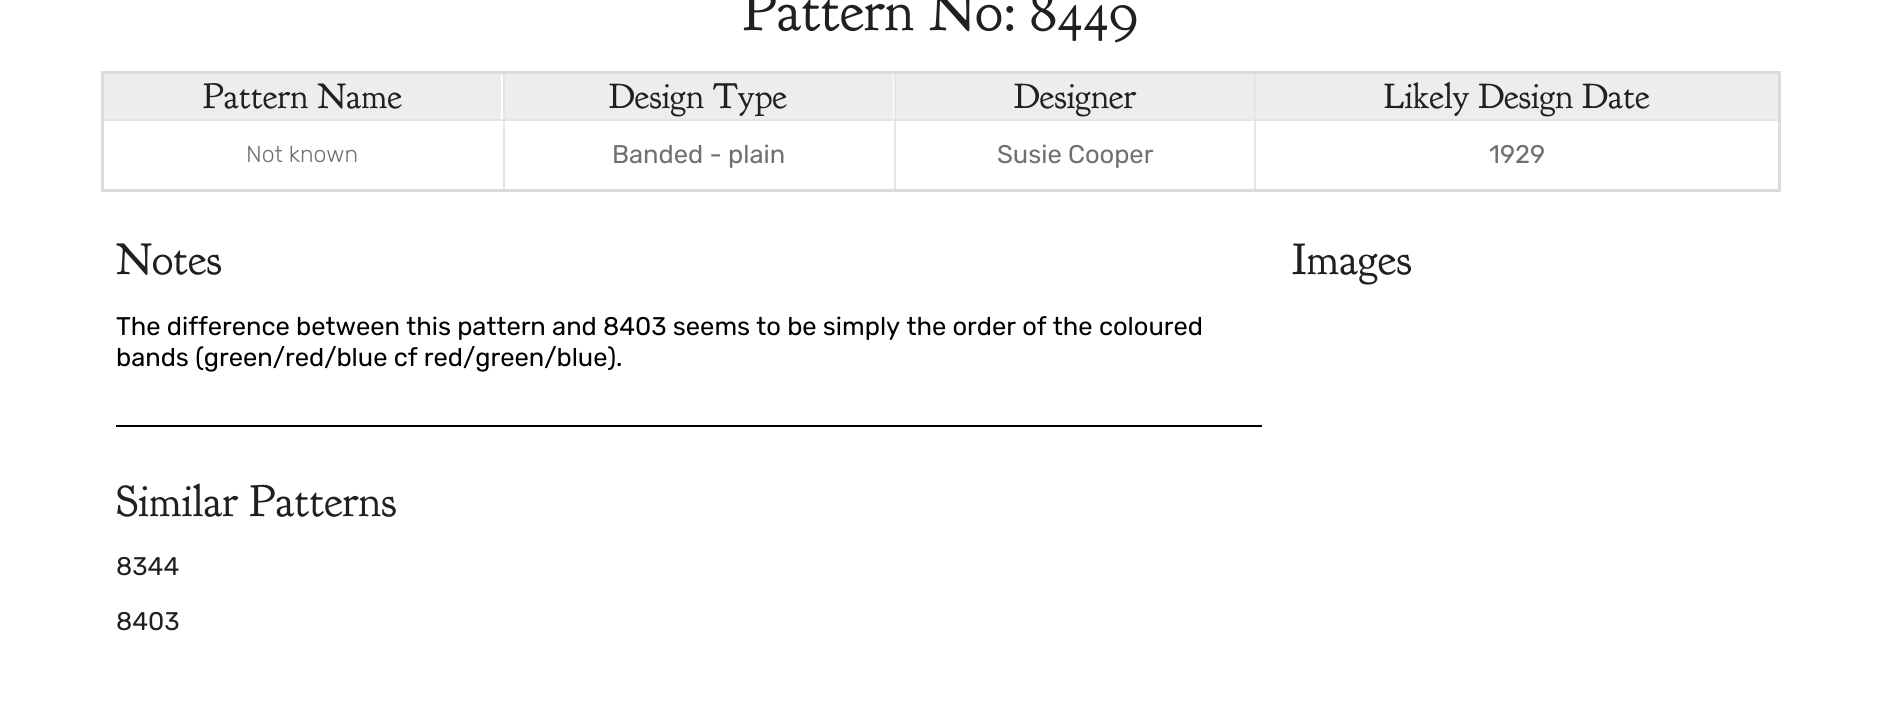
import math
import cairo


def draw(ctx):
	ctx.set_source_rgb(1, 1, 1)
	ctx.paint()
	ctx.select_font_face('Goudy Bookletter 1911')
	ctx.set_font_size(58.5)
	ctx.set_source_rgb(0.125, 0.125, 0.125)
	ctx.move_to(743, 30)
	ctx.show_text('Pattern No: 8449')
	ctx.set_source_rgb(0.898, 0.898, 0.898)
	ctx.rectangle(1254, 119, 2, 72)
	ctx.rectangle(1254, 119, 527, 2)
	ctx.rectangle(1254, 72, 2, 48)
	ctx.rectangle(894, 119, 2, 72)
	ctx.rectangle(894, 119, 362, 2)
	ctx.rectangle(894, 72, 2, 48)
	ctx.rectangle(503, 119, 2, 72)
	ctx.rectangle(503, 119, 393, 2)
	ctx.rectangle(503, 72, 2, 48)
	ctx.fill()
	ctx.set_source_rgb(0.859, 0.859, 0.859)
	ctx.rectangle(101, 71, 1680, 3)
	ctx.rectangle(1778, 71, 3, 121)
	ctx.rectangle(101, 189, 1680, 3)
	ctx.fill()
	ctx.set_source_rgb(0.898, 0.898, 0.898)
	ctx.rectangle(102, 119, 402, 2)
	ctx.fill()
	ctx.set_source_rgb(0.859, 0.859, 0.859)
	ctx.rectangle(101, 71, 3, 121)
	ctx.fill()
	ctx.set_source_rgb(0.929, 0.929, 0.929)
	ctx.rectangle(104, 74, 397, 45)
	ctx.fill()
	ctx.set_font_size(36)
	ctx.set_source_rgb(0.125, 0.125, 0.125)
	ctx.move_to(203, 108)
	ctx.show_text('Pattern Name')
	ctx.set_source_rgb(0.929, 0.929, 0.929)
	ctx.rectangle(505, 74, 388, 45)
	ctx.fill()
	ctx.set_source_rgb(0.125, 0.125, 0.125)
	ctx.move_to(609, 108)
	ctx.show_text('Design Type')
	ctx.set_source_rgb(0.929, 0.929, 0.929)
	ctx.rectangle(896, 74, 358, 45)
	ctx.fill()
	ctx.set_source_rgb(0.125, 0.125, 0.125)
	ctx.move_to(1014, 108)
	ctx.show_text('Designer')
	ctx.set_source_rgb(0.929, 0.929, 0.929)
	ctx.rectangle(1256, 74, 522, 45)
	ctx.fill()
	ctx.set_source_rgb(0.125, 0.125, 0.125)
	ctx.move_to(1384, 108)
	ctx.show_text('Likely Design Date')
	ctx.select_font_face('Rubik Light')
	ctx.set_font_size(23)
	ctx.set_source_rgb(0.439, 0.439, 0.439)
	ctx.move_to(246, 162)
	ctx.show_text('Not known')
	ctx.select_font_face('Rubik')
	ctx.set_font_size(25.5)
	for x, y, s in [
		(612, 163, 'Banded - plain'),
		(997, 163, 'Susie Cooper'),
		(1489, 163, '1929'),
	]:
		ctx.move_to(x, y)
		ctx.show_text(s)
	ctx.select_font_face('Goudy Bookletter 1911')
	ctx.set_font_size(45)
	ctx.set_source_rgb(0.125, 0.125, 0.125)
	ctx.move_to(116, 274)
	ctx.show_text('Notes')
	ctx.select_font_face('Rubik')
	ctx.set_font_size(25.5)
	ctx.set_source_rgb(0, 0, 0)
	ctx.move_to(116, 335)
	ctx.show_text('The difference between this pattern and 8403 seems to be simply the order of the coloured')
	ctx.move_to(116, 366)
	ctx.show_text('bands (green/red/blue cf red/green/blue).')
	ctx.rectangle(116, 425, 1146, 2)
	ctx.fill()
	ctx.select_font_face('Goudy Bookletter 1911')
	ctx.set_font_size(45)
	ctx.set_source_rgb(0.125, 0.125, 0.125)
	ctx.move_to(116, 516)
	ctx.show_text('Similar Patterns')
	ctx.select_font_face('Rubik')
	ctx.set_font_size(25.5)
	ctx.move_to(116, 575)
	ctx.show_text('8344')
	ctx.move_to(116, 630)
	ctx.show_text('8403')
	ctx.select_font_face('Goudy Bookletter 1911')
	ctx.set_font_size(45)
	ctx.move_to(1292, 274)
	ctx.show_text('Images')


surface = cairo.ImageSurface(cairo.FORMAT_RGB24, 1880, 725)
ctx = cairo.Context(surface)
options = cairo.FontOptions()
options.set_hint_metrics(cairo.HINT_METRICS_OFF)
options.set_hint_style(cairo.HINT_STYLE_NONE)
ctx.set_font_options(options)
ctx.set_miter_limit(4)
draw(ctx)
surface.write_to_png('image.png')
